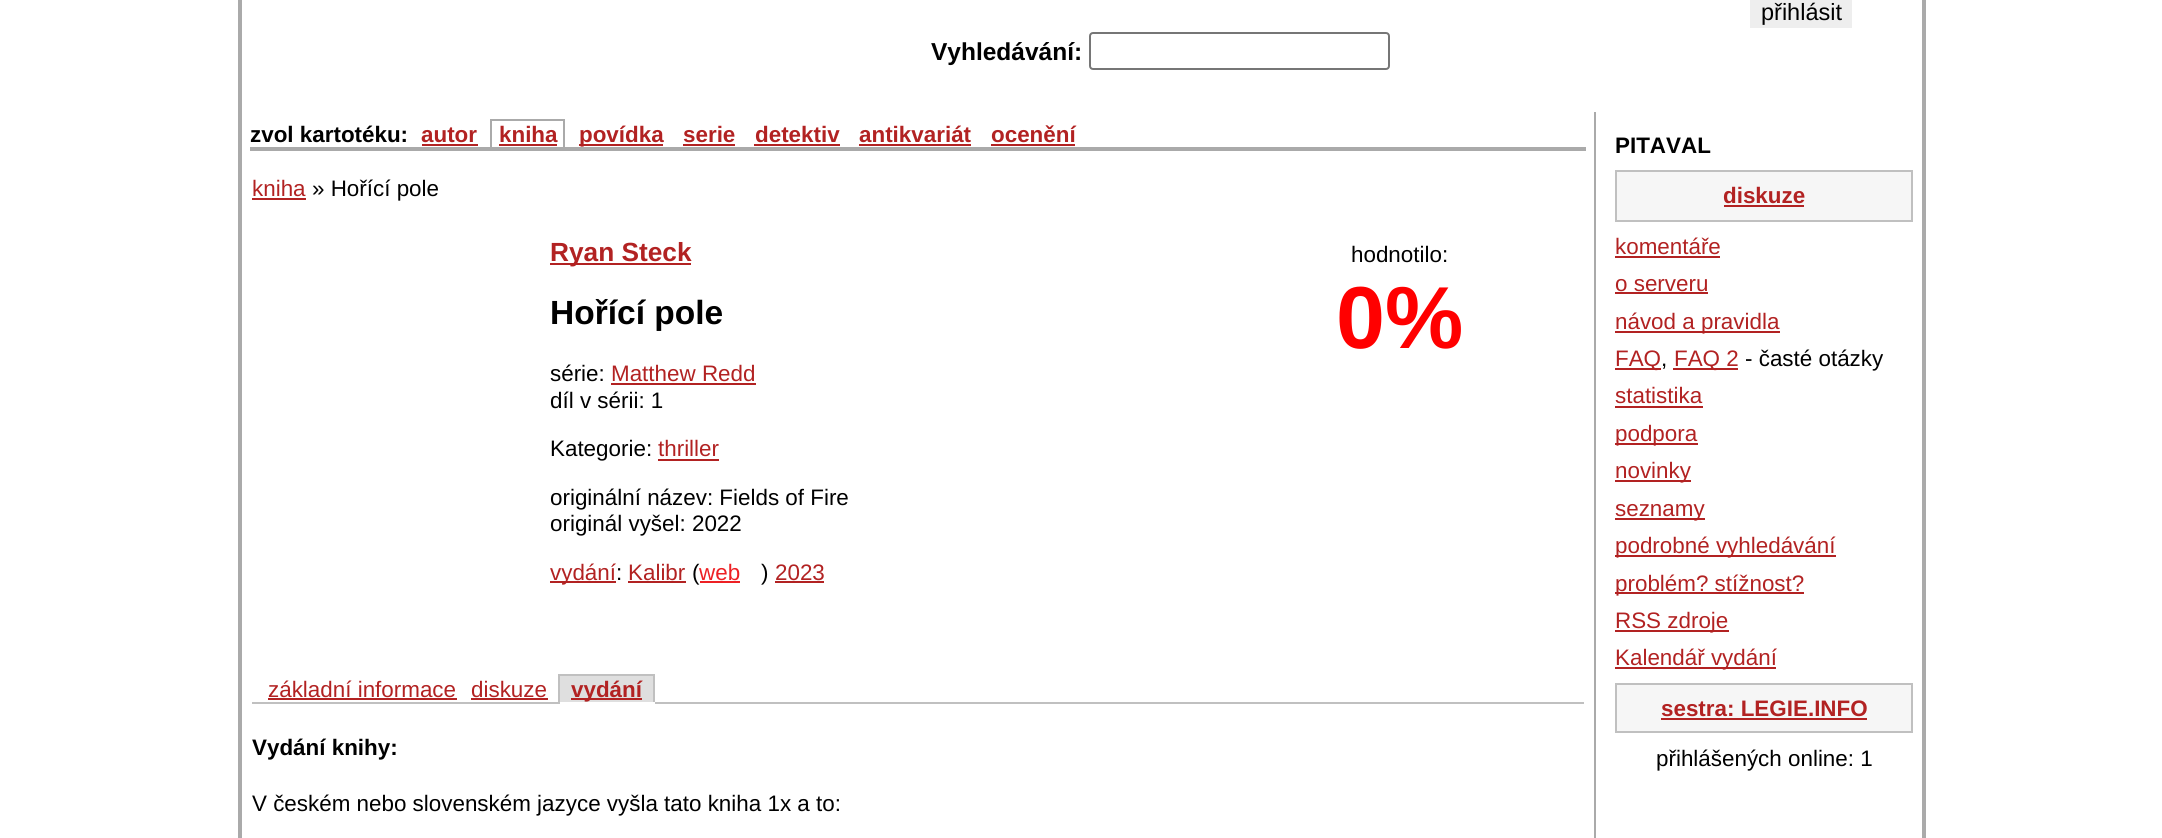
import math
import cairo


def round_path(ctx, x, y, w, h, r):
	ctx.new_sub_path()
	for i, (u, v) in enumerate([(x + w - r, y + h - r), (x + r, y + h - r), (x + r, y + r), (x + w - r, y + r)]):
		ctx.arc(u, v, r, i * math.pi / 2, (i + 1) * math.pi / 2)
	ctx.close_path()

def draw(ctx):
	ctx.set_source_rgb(1, 1, 1)
	ctx.paint()
	ctx.set_source_rgb(0.667, 0.667, 0.667)
	ctx.rectangle(1922, 0, 4, 838)
	ctx.rectangle(238, 0, 4, 838)
	ctx.fill()
	ctx.set_source_rgb(0.933, 0.933, 0.933)
	ctx.rectangle(1750, 0, 102, 28)
	ctx.fill()
	ctx.select_font_face('Liberation Sans')
	ctx.set_font_size(23.5)
	ctx.set_source_rgb(0, 0, 0)
	ctx.move_to(1761, 20)
	ctx.show_text('přihlásit')
	ctx.select_font_face('Liberation Sans', cairo.FONT_SLANT_NORMAL, cairo.FONT_WEIGHT_BOLD)
	ctx.set_font_size(24.5)
	ctx.move_to(931, 60)
	ctx.show_text('Vyhledávání:')
	round_path(ctx, 1090, 33, 299, 36, 3)
	ctx.set_source_rgb(0.463, 0.463, 0.463)
	ctx.stroke()
	ctx.set_source_rgb(0.667, 0.667, 0.667)
	ctx.rectangle(1594, 112, 2, 726)
	ctx.fill()
	ctx.rectangle(250, 147, 1336, 4)
	ctx.fill()
	ctx.set_font_size(22.4)
	ctx.set_source_rgb(0, 0, 0)
	ctx.move_to(250, 142)
	ctx.show_text('zvol kartotéku:')
	ctx.set_source_rgb(0.698, 0.133, 0.133)
	ctx.move_to(421, 142)
	ctx.show_text('autor')
	ctx.rectangle(422, 144, 56, 2)
	ctx.fill()
	ctx.rectangle(491, 120, 73, 28)
	ctx.set_source_rgb(0.667, 0.667, 0.667)
	ctx.stroke()
	ctx.set_source_rgb(0.698, 0.133, 0.133)
	ctx.move_to(499, 142)
	ctx.show_text('kniha')
	ctx.rectangle(499, 144, 58, 2)
	ctx.fill()
	ctx.rectangle(579, 144, 84, 2)
	ctx.fill()
	ctx.move_to(579, 142)
	ctx.show_text('povídka')
	ctx.move_to(683, 142)
	ctx.show_text('serie')
	ctx.rectangle(683, 144, 52, 2)
	ctx.fill()
	ctx.move_to(755, 142)
	ctx.show_text('detektiv')
	ctx.rectangle(754, 144, 86, 2)
	ctx.fill()
	ctx.move_to(859, 142)
	ctx.show_text('antikvariát')
	ctx.rectangle(859, 144, 112, 2)
	ctx.fill()
	ctx.move_to(991, 142)
	ctx.show_text('ocenění')
	ctx.rectangle(991, 144, 84, 2)
	ctx.fill()
	ctx.select_font_face('Liberation Sans')
	ctx.move_to(252, 196)
	ctx.show_text('kniha')
	ctx.rectangle(252, 198, 54, 2)
	ctx.fill()
	ctx.set_source_rgb(0, 0, 0)
	ctx.move_to(312, 196)
	ctx.show_text('» Hořící pole')
	ctx.set_source_rgb(0.698, 0.133, 0.133)
	ctx.rectangle(550, 263, 141, 2)
	ctx.fill()
	ctx.select_font_face('Liberation Sans', cairo.FONT_SLANT_NORMAL, cairo.FONT_WEIGHT_BOLD)
	ctx.set_font_size(26.25)
	ctx.move_to(550, 261)
	ctx.show_text('Ryan Steck')
	ctx.set_font_size(33.5)
	ctx.set_source_rgb(0, 0, 0)
	ctx.move_to(550, 324)
	ctx.show_text('Hořící pole')
	ctx.select_font_face('Liberation Sans')
	ctx.set_font_size(22.4)
	ctx.move_to(550, 381)
	ctx.show_text('série:')
	ctx.set_source_rgb(0.698, 0.133, 0.133)
	ctx.move_to(611, 381)
	ctx.show_text('Matthew Redd')
	ctx.rectangle(611, 383, 145, 2)
	ctx.fill()
	ctx.set_source_rgb(0, 0, 0)
	ctx.move_to(550, 408)
	ctx.show_text('díl v sérii: 1')
	ctx.move_to(550, 456)
	ctx.show_text('Kategorie:')
	ctx.set_source_rgb(0.698, 0.133, 0.133)
	ctx.move_to(658, 456)
	ctx.show_text('thriller')
	ctx.rectangle(658, 459, 61, 2)
	ctx.fill()
	ctx.set_source_rgb(0, 0, 0)
	ctx.move_to(550, 505)
	ctx.show_text('originální název: Fields of Fire')
	ctx.move_to(550, 531)
	ctx.show_text('originál vyšel: 2022')
	ctx.set_source_rgb(0.698, 0.133, 0.133)
	ctx.rectangle(550, 581, 66, 2)
	ctx.fill()
	ctx.move_to(550, 580)
	ctx.show_text('vydání')
	ctx.set_source_rgb(0, 0, 0)
	ctx.move_to(616, 580)
	ctx.show_text(':')
	ctx.set_source_rgb(0.698, 0.133, 0.133)
	ctx.move_to(628, 580)
	ctx.show_text('Kalibr')
	ctx.rectangle(628, 581, 58, 2)
	ctx.fill()
	ctx.set_source_rgb(0, 0, 0)
	ctx.move_to(692, 580)
	ctx.show_text('(')
	ctx.set_source_rgb(0.929, 0.125, 0.141)
	ctx.move_to(699, 580)
	ctx.show_text('web')
	ctx.rectangle(700, 581, 40, 2)
	ctx.fill()
	ctx.set_source_rgb(0, 0, 0)
	ctx.move_to(761, 580)
	ctx.show_text(')')
	ctx.set_source_rgb(0.698, 0.133, 0.133)
	ctx.move_to(775, 580)
	ctx.show_text('2023')
	ctx.rectangle(775, 581, 49, 2)
	ctx.fill()
	ctx.set_source_rgb(0, 0, 0)
	ctx.move_to(1351, 262)
	ctx.show_text('hodnotilo:')
	ctx.select_font_face('Liberation Sans', cairo.FONT_SLANT_NORMAL, cairo.FONT_WEIGHT_BOLD)
	ctx.set_font_size(88)
	ctx.set_source_rgb(1, 0, 0)
	ctx.move_to(1336, 348)
	ctx.show_text('0%')
	ctx.set_source_rgb(0.753, 0.753, 0.753)
	ctx.rectangle(252, 702, 1332, 2)
	ctx.fill()
	ctx.select_font_face('Liberation Sans')
	ctx.set_font_size(22.4)
	ctx.set_source_rgb(0.698, 0.133, 0.133)
	ctx.move_to(268, 697)
	ctx.show_text('základní informace')
	ctx.rectangle(268, 698, 189, 2)
	ctx.fill()
	ctx.move_to(471, 697)
	ctx.show_text('diskuze')
	ctx.rectangle(471, 698, 77, 2)
	ctx.fill()
	ctx.set_source_rgb(0.875, 0.875, 0.875)
	ctx.rectangle(560, 676, 93, 26)
	ctx.fill()
	ctx.set_source_rgb(0.698, 0.133, 0.133)
	ctx.rectangle(571, 698, 71, 2)
	ctx.fill()
	ctx.select_font_face('Liberation Sans', cairo.FONT_SLANT_NORMAL, cairo.FONT_WEIGHT_BOLD)
	ctx.move_to(571, 697)
	ctx.show_text('vydání')
	ctx.set_source_rgb(0.753, 0.753, 0.753)
	ctx.rectangle(558, 674, 97, 2)
	ctx.rectangle(653, 674, 2, 30)
	ctx.fill()
	ctx.set_source_rgb(1, 1, 1)
	ctx.rectangle(558, 702, 97, 2)
	ctx.fill()
	ctx.set_source_rgb(0.753, 0.753, 0.753)
	ctx.rectangle(558, 674, 2, 30)
	ctx.fill()
	ctx.set_source_rgb(0, 0, 0)
	ctx.move_to(252, 755)
	ctx.show_text('Vydání knihy:')
	ctx.select_font_face('Liberation Sans')
	ctx.move_to(252, 811)
	ctx.show_text('V českém nebo slovenském jazyce vyšla tato kniha 1x a to:')
	ctx.select_font_face('Liberation Sans', cairo.FONT_SLANT_NORMAL, cairo.FONT_WEIGHT_BOLD)
	ctx.move_to(1615, 153)
	ctx.show_text('PITAVAL')
	ctx.set_source_rgb(0.961, 0.961, 0.961)
	ctx.rectangle(1616, 171, 296, 50)
	ctx.fill_preserve()
	ctx.set_source_rgb(0.753, 0.753, 0.753)
	ctx.stroke()
	ctx.set_source_rgb(0.698, 0.133, 0.133)
	ctx.move_to(1723, 203)
	ctx.show_text('diskuze')
	ctx.rectangle(1724, 205, 80, 2)
	ctx.fill()
	ctx.select_font_face('Liberation Sans')
	ctx.move_to(1615, 254)
	ctx.show_text('komentáře')
	ctx.rectangle(1615, 256, 105, 2)
	ctx.fill()
	ctx.move_to(1615, 291)
	ctx.show_text('o serveru')
	ctx.rectangle(1615, 292, 93, 2)
	ctx.fill()
	ctx.rectangle(1615, 331, 165, 2)
	ctx.fill()
	ctx.move_to(1615, 329)
	ctx.show_text('návod a pravidla')
	ctx.rectangle(1615, 368, 46, 2)
	ctx.fill()
	ctx.move_to(1615, 366)
	ctx.show_text('FAQ')
	ctx.set_source_rgb(0, 0, 0)
	ctx.move_to(1661, 366)
	ctx.show_text(',')
	ctx.set_source_rgb(0.698, 0.133, 0.133)
	ctx.rectangle(1673, 368, 65, 2)
	ctx.fill()
	ctx.move_to(1674, 366)
	ctx.show_text('FAQ 2')
	ctx.set_source_rgb(0, 0, 0)
	ctx.move_to(1745, 366)
	ctx.show_text('- časté otázky')
	ctx.set_source_rgb(0.698, 0.133, 0.133)
	ctx.move_to(1615, 403)
	ctx.show_text('statistika')
	ctx.rectangle(1615, 406, 88, 2)
	ctx.fill()
	ctx.rectangle(1615, 443, 83, 2)
	ctx.fill()
	ctx.move_to(1615, 441)
	ctx.show_text('podpora')
	ctx.rectangle(1615, 480, 76, 2)
	ctx.fill()
	ctx.move_to(1615, 478)
	ctx.show_text('novinky')
	ctx.rectangle(1615, 518, 90, 2)
	ctx.fill()
	ctx.move_to(1615, 516)
	ctx.show_text('seznamy')
	ctx.rectangle(1615, 555, 221, 2)
	ctx.fill()
	ctx.move_to(1615, 553)
	ctx.show_text('podrobné vyhledávání')
	ctx.rectangle(1615, 592, 189, 2)
	ctx.fill()
	ctx.move_to(1615, 591)
	ctx.show_text('problém? stížnost?')
	ctx.rectangle(1615, 630, 114, 2)
	ctx.fill()
	ctx.move_to(1615, 628)
	ctx.show_text('RSS zdroje')
	ctx.rectangle(1615, 667, 161, 2)
	ctx.fill()
	ctx.move_to(1615, 665)
	ctx.show_text('Kalendář vydání')
	ctx.set_source_rgb(0.961, 0.961, 0.961)
	ctx.rectangle(1616, 684, 296, 48)
	ctx.fill_preserve()
	ctx.set_source_rgb(0.753, 0.753, 0.753)
	ctx.stroke()
	ctx.select_font_face('Liberation Sans', cairo.FONT_SLANT_NORMAL, cairo.FONT_WEIGHT_BOLD)
	ctx.set_source_rgb(0.698, 0.133, 0.133)
	ctx.move_to(1661, 716)
	ctx.show_text('sestra: LEGIE.INFO')
	ctx.rectangle(1661, 718, 206, 2)
	ctx.fill()
	ctx.select_font_face('Liberation Sans')
	ctx.set_source_rgb(0, 0, 0)
	ctx.move_to(1656, 766)
	ctx.show_text('přihlášených online: 1')


surface = cairo.ImageSurface(cairo.FORMAT_RGB24, 2162, 838)
ctx = cairo.Context(surface)
options = cairo.FontOptions()
options.set_hint_metrics(cairo.HINT_METRICS_OFF)
options.set_hint_style(cairo.HINT_STYLE_NONE)
ctx.set_font_options(options)
ctx.set_miter_limit(4)
draw(ctx)
surface.write_to_png('image.png')
